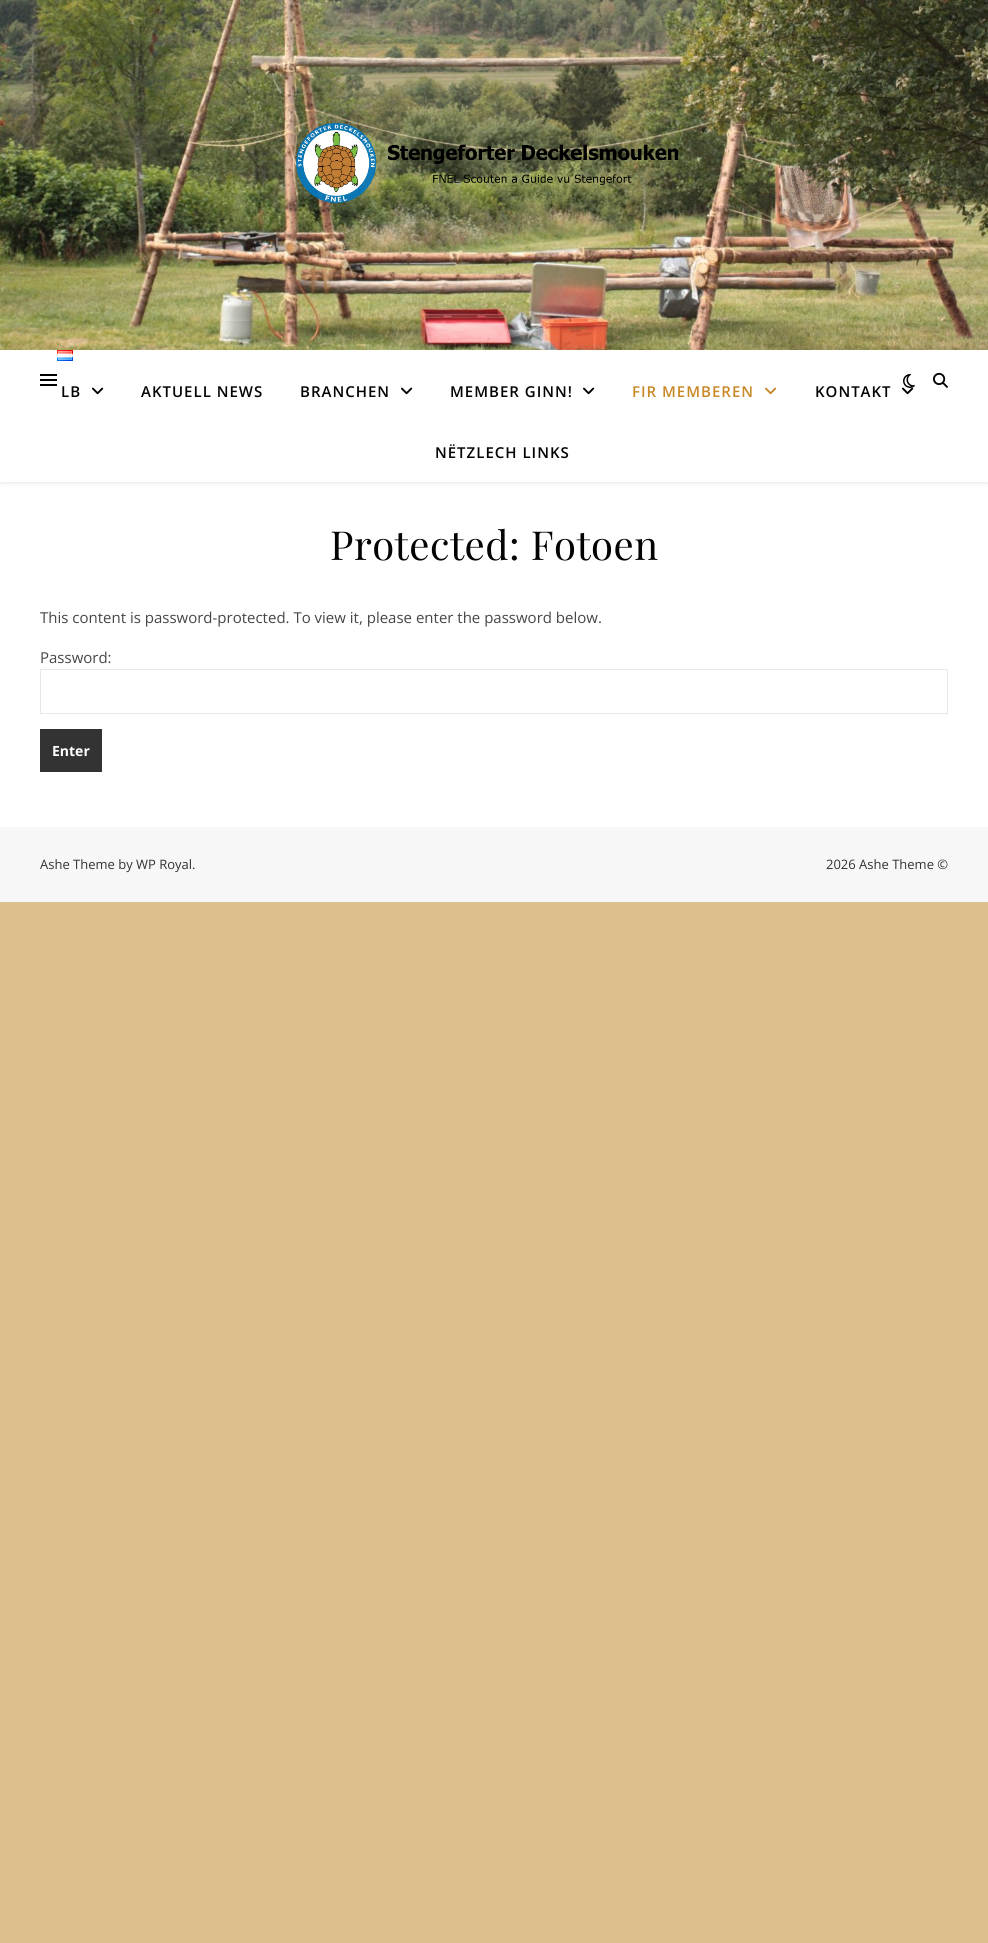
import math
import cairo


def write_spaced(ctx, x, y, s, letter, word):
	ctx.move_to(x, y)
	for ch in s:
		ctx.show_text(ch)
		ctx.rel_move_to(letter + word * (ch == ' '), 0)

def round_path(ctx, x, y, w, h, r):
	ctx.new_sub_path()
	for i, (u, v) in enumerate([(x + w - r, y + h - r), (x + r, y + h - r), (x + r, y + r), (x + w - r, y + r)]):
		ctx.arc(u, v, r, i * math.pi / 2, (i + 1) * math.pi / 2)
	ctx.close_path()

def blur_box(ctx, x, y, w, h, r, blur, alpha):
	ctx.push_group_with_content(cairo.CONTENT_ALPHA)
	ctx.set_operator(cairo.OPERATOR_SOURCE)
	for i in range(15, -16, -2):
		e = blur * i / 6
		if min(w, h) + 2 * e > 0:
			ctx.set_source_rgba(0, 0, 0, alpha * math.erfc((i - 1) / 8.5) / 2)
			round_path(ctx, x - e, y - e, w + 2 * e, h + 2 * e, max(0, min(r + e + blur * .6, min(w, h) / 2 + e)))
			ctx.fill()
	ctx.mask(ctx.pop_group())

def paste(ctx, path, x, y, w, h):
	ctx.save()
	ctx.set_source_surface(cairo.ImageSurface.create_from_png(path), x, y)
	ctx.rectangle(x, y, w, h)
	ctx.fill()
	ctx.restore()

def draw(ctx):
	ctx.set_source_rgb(0.867, 0.749, 0.553)
	ctx.paint()
	paste(ctx, 'media/1.png', 0, 0, 988, 350)
	paste(ctx, 'media/2.png', 296, 123, 383, 80)
	ctx.set_source_rgb(1, 1, 1)
	ctx.rectangle(0, 482, 988, 345)
	ctx.fill()
	ctx.set_source_rgb(0, 0, 0)
	blur_box(ctx, 0, 351, 988, 132, 0, 2.5, 0.1)
	ctx.set_source_rgb(1, 1, 1)
	ctx.rectangle(0, 350, 988, 132)
	ctx.fill()
	ctx.set_source_rgb(0, 0, 0)
	ctx.rectangle(40, 374, 17, 2)
	ctx.rectangle(40, 379, 17, 2)
	ctx.rectangle(40, 384, 17, 2)
	ctx.fill()
	paste(ctx, 'media/6.png', 902, 387, 12, 8)
	paste(ctx, 'media/3.png', 903, 374, 12, 14)
	paste(ctx, 'media/4.png', 933, 372, 15, 16)
	paste(ctx, 'media/5.png', 57, 350, 16, 11)
	ctx.select_font_face('Open Sans SemiBold')
	ctx.set_font_size(15)
	ctx.set_source_rgb(0.012, 0.012, 0.012)
	write_spaced(ctx, 61, 397, 'LB', 1, 0)
	paste(ctx, 'media/6.png', 92, 387, 12, 8)
	write_spaced(ctx, 141, 397, 'AKTUELL NEWS', 1, 0)
	write_spaced(ctx, 300, 397, 'BRANCHEN', 1, 0)
	paste(ctx, 'media/6.png', 401, 387, 12, 8)
	write_spaced(ctx, 450, 397, 'MEMBER GINN!', 1, 0)
	paste(ctx, 'media/6.png', 583, 387, 12, 8)
	ctx.set_source_rgb(0.788, 0.533, 0.149)
	write_spaced(ctx, 632, 397, 'FIR MEMBEREN', 1, 0)
	paste(ctx, 'media/7.png', 765, 387, 12, 8)
	ctx.set_source_rgb(0.012, 0.012, 0.012)
	write_spaced(ctx, 815, 397, 'KONTAKT', 1, 0)
	write_spaced(ctx, 435, 458, 'NËTZLECH LINKS', 1, 0)
	ctx.select_font_face('Playfair Display')
	ctx.set_font_size(40)
	write_spaced(ctx, 330, 560, 'Protected: Fotoen', 0.5, 0)
	ctx.select_font_face('Open Sans')
	ctx.set_font_size(15)
	ctx.set_source_rgb(0.275, 0.275, 0.275)
	ctx.move_to(40, 623)
	ctx.show_text('This content is password-protected. To view it, please enter the password below.')
	ctx.move_to(40, 663)
	ctx.show_text('Password:')
	ctx.rectangle(40.5, 669.5, 907, 44)
	ctx.set_source_rgb(0.91, 0.91, 0.91)
	ctx.set_line_width(1)
	ctx.stroke()
	ctx.set_source_rgb(0.2, 0.2, 0.2)
	ctx.rectangle(40, 729, 62, 43)
	ctx.fill()
	ctx.select_font_face('Open Sans', cairo.FONT_SLANT_NORMAL, cairo.FONT_WEIGHT_BOLD)
	ctx.set_font_size(14)
	ctx.set_source_rgb(1, 1, 1)
	ctx.move_to(52, 756)
	ctx.show_text('Enter')
	ctx.set_source_rgb(0.965, 0.965, 0.965)
	ctx.rectangle(0, 827, 988, 75)
	ctx.fill()
	ctx.select_font_face('Open Sans')
	ctx.set_font_size(13)
	ctx.set_source_rgb(0.2, 0.2, 0.2)
	ctx.move_to(40, 869)
	ctx.show_text('Ashe Theme by WP Royal.')
	ctx.move_to(826, 869)
	ctx.show_text('2026 Ashe Theme ©')


surface = cairo.ImageSurface(cairo.FORMAT_RGB24, 988, 1943)
ctx = cairo.Context(surface)
options = cairo.FontOptions()
options.set_hint_metrics(cairo.HINT_METRICS_OFF)
options.set_hint_style(cairo.HINT_STYLE_NONE)
ctx.set_font_options(options)
ctx.set_miter_limit(4)
draw(ctx)
surface.write_to_png('image.png')
